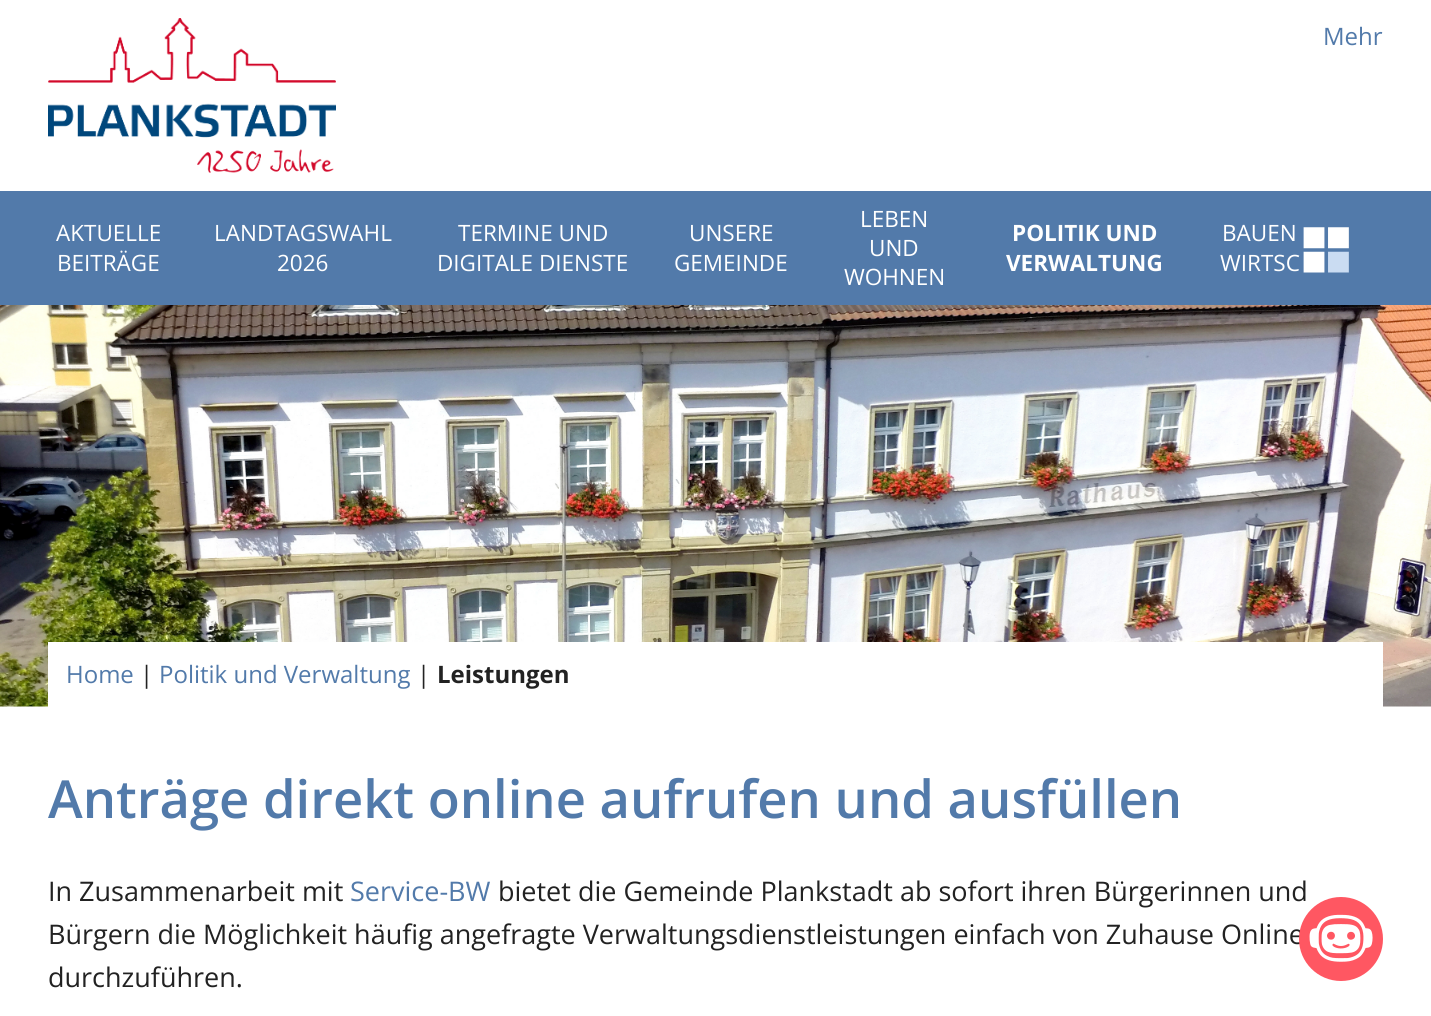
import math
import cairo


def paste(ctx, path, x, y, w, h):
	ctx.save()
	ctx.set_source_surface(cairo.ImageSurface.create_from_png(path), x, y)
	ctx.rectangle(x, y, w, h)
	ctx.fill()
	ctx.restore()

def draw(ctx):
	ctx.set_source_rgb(1, 1, 1)
	ctx.paint()
	paste(ctx, 'media/1.png', 48, 18, 288, 155)
	ctx.select_font_face('Open Sans')
	ctx.set_font_size(24)
	ctx.set_source_rgb(0.322, 0.478, 0.667)
	ctx.move_to(1323, 45)
	ctx.show_text('Mehr')
	ctx.rectangle(0, 191, 1431, 114)
	ctx.fill()
	ctx.set_font_size(22.5)
	ctx.set_source_rgb(1, 1, 1)
	for x, y, s in [
		(56, 241, 'AKTUELLE'),
		(57, 271, 'BEITRÄGE'),
		(214, 241, 'LANDTAGSWAHL'),
		(277, 271, '2026'),
		(458, 241, 'TERMINE UND'),
		(437, 271, 'DIGITALE DIENSTE'),
		(689, 241, 'UNSERE'),
		(674, 271, 'GEMEINDE'),
		(860, 227, 'LEBEN'),
		(869, 256, 'UND'),
		(844, 285, 'WOHNEN'),
	]:
		ctx.move_to(x, y)
		ctx.show_text(s)
	ctx.select_font_face('Open Sans', cairo.FONT_SLANT_NORMAL, cairo.FONT_WEIGHT_BOLD)
	ctx.move_to(1012, 241)
	ctx.show_text('POLITIK UND')
	ctx.move_to(1006, 271)
	ctx.show_text('VERWALTUNG')
	ctx.select_font_face('Open Sans')
	ctx.move_to(1222, 241)
	ctx.show_text('BAUEN')
	ctx.move_to(1220, 271)
	ctx.show_text('WIRTSC')
	paste(ctx, 'media/2.png', 1303, 227, 46, 46)
	paste(ctx, 'media/3.png', 0, 305, 1431, 402)
	ctx.rectangle(48, 642, 1335, 65)
	ctx.fill()
	ctx.set_font_size(24)
	ctx.set_source_rgb(0.322, 0.478, 0.667)
	ctx.move_to(66, 683)
	ctx.show_text('Home')
	ctx.set_source_rgb(0.133, 0.133, 0.133)
	ctx.move_to(140, 683)
	ctx.show_text('|')
	ctx.set_source_rgb(0.322, 0.478, 0.667)
	ctx.move_to(159, 683)
	ctx.show_text('Politik und Verwaltung')
	ctx.set_source_rgb(0.133, 0.133, 0.133)
	ctx.move_to(417, 683)
	ctx.show_text('|')
	ctx.select_font_face('Open Sans', cairo.FONT_SLANT_NORMAL, cairo.FONT_WEIGHT_BOLD)
	ctx.move_to(437, 683)
	ctx.show_text('Leistungen')
	ctx.select_font_face('Open Sans SemiBold')
	ctx.set_font_size(52.5)
	ctx.set_source_rgb(0.322, 0.478, 0.667)
	ctx.move_to(48, 818)
	ctx.show_text('Anträge direkt online aufrufen und ausfüllen')
	ctx.select_font_face('Open Sans')
	ctx.set_font_size(27)
	ctx.set_source_rgb(0.133, 0.133, 0.133)
	ctx.move_to(48, 901)
	ctx.show_text('In Zusammenarbeit mit')
	ctx.set_source_rgb(0.322, 0.478, 0.667)
	ctx.move_to(350, 901)
	ctx.show_text('Service-BW')
	ctx.set_source_rgb(0.133, 0.133, 0.133)
	for x, y, s in [
		(498, 901, 'bietet die Gemeinde Plankstadt ab sofort ihren Bürgerinnen und'),
		(48, 944, 'Bürgern die Möglichkeit häufig angefragte Verwaltungsdienstleistungen einfach von Zuhause Online'),
		(48, 987, 'durchzuführen.'),
	]:
		ctx.move_to(x, y)
		ctx.show_text(s)
	ctx.set_source_rgb(1, 0.341, 0.384)
	ctx.new_path()
	ctx.arc(1341, 939, 42, 0, 2 * math.pi)
	ctx.fill()
	paste(ctx, 'media/4.png', 1309, 914, 64, 48)


surface = cairo.ImageSurface(cairo.FORMAT_RGB24, 1431, 1016)
ctx = cairo.Context(surface)
options = cairo.FontOptions()
options.set_hint_metrics(cairo.HINT_METRICS_OFF)
options.set_hint_style(cairo.HINT_STYLE_NONE)
ctx.set_font_options(options)
ctx.set_miter_limit(4)
draw(ctx)
surface.write_to_png('image.png')
